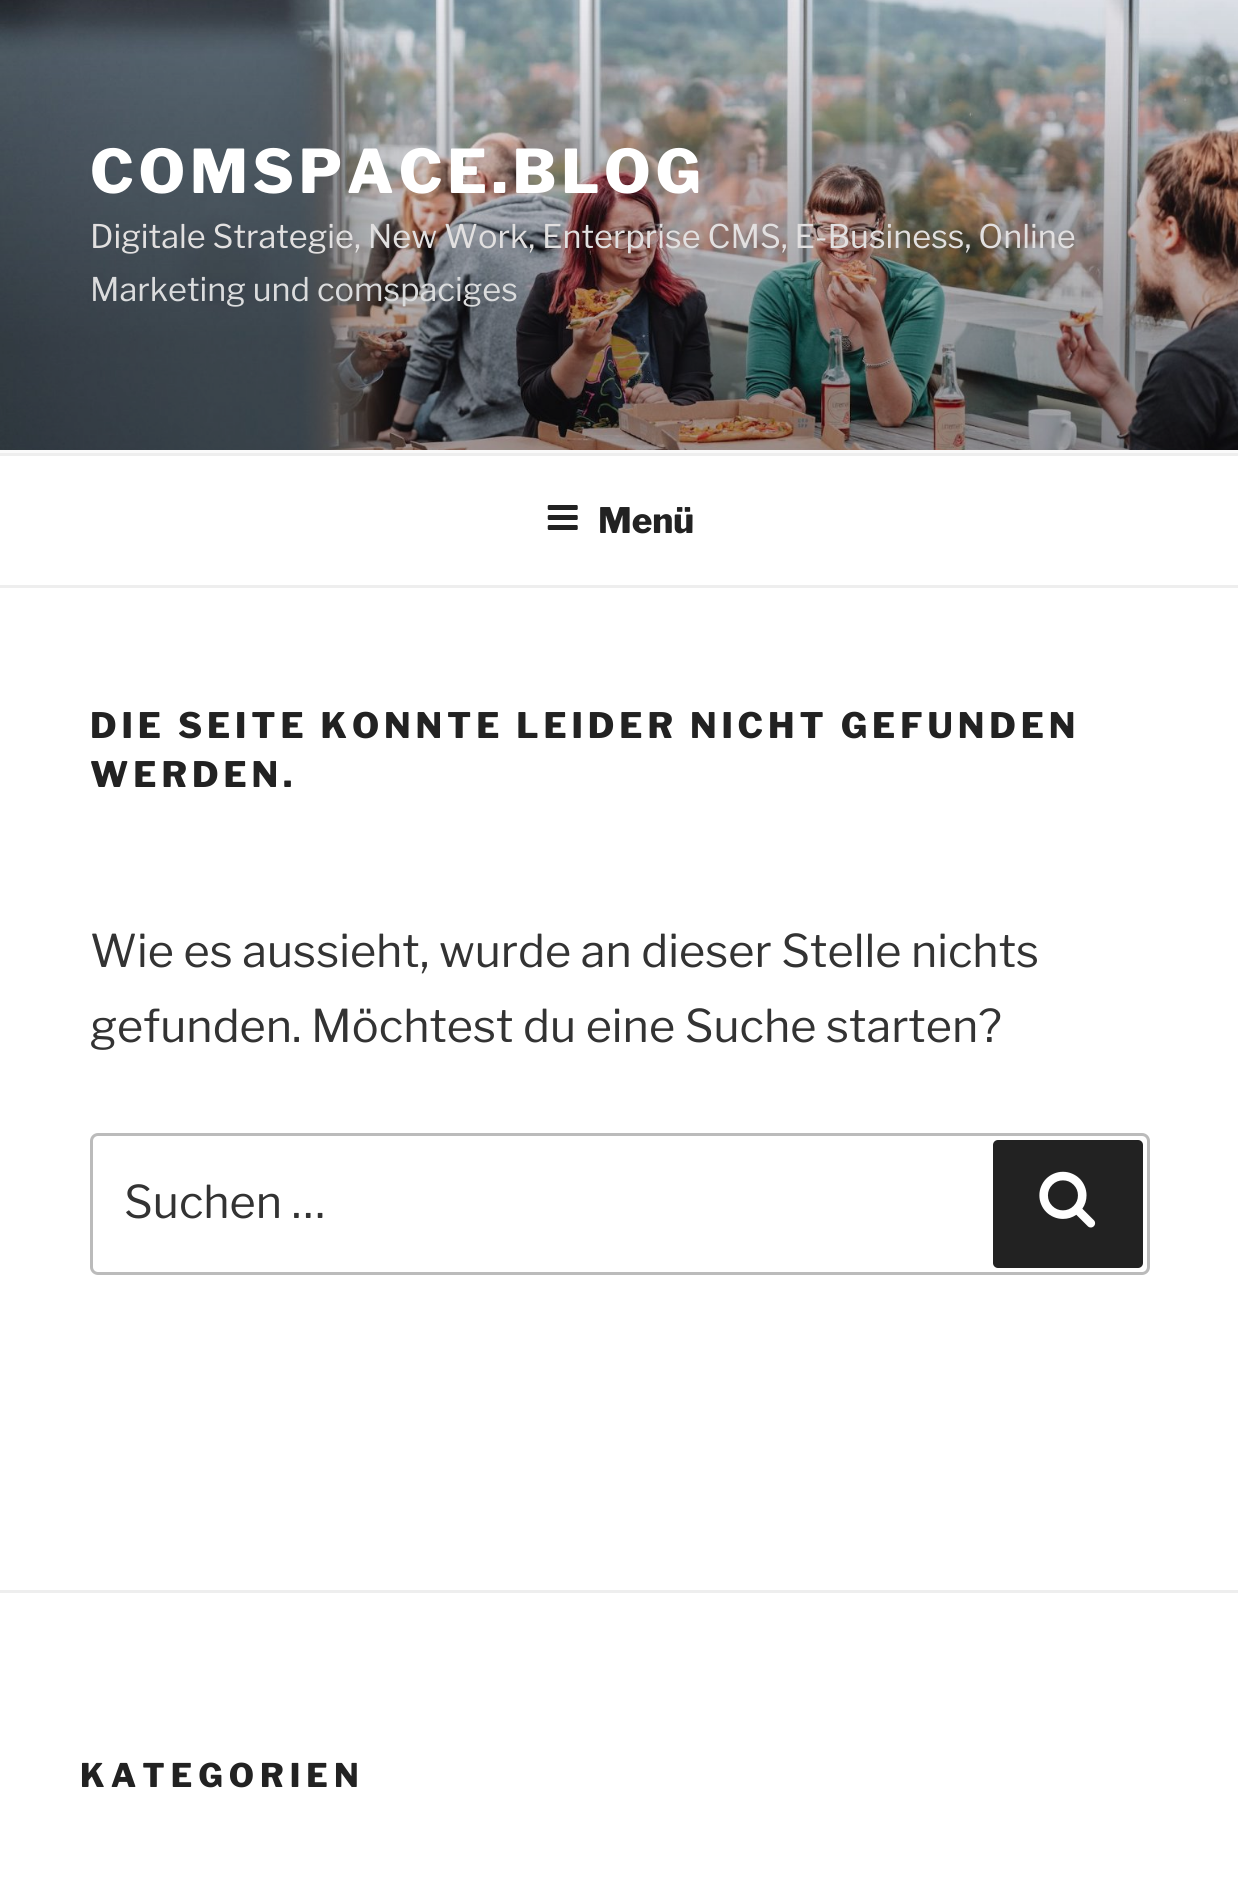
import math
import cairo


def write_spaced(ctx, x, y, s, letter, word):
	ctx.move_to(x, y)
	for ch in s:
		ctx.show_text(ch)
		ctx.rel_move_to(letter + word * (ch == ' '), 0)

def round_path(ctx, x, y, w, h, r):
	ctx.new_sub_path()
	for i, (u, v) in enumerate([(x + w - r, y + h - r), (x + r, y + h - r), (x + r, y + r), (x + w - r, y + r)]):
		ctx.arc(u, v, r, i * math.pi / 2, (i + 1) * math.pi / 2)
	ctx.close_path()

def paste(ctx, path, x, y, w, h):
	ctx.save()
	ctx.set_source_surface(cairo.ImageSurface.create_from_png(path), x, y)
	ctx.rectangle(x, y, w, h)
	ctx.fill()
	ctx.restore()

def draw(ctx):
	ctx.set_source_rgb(1, 1, 1)
	ctx.paint()
	ctx.set_source_rgb(0.98, 0.98, 0.98)
	ctx.rectangle(0, 450, 1238, 3)
	ctx.fill()
	paste(ctx, 'media/1.png', 0, 0, 1238, 450)
	ctx.select_font_face('Libre Franklin Thin')
	ctx.set_font_size(60)
	ctx.set_source_rgb(1, 1, 1)
	write_spaced(ctx, 90, 193, 'COMSPACE.BLOG', 4.75, 0)
	ctx.select_font_face('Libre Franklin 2 Thin')
	ctx.set_font_size(32.5)
	ctx.set_source_rgb(0.886, 0.878, 0.878)
	ctx.move_to(90, 248)
	ctx.show_text('Digitale Strategie, New Work, Enterprise CMS, E-Business, Online')
	ctx.set_source_rgb(0.859, 0.863, 0.867)
	ctx.move_to(90, 301)
	ctx.show_text('Marketing und comspaciges')
	ctx.set_source_rgb(0.933, 0.933, 0.933)
	ctx.rectangle(0, 453, 1238, 3)
	ctx.fill()
	ctx.rectangle(0, 585, 1238, 3)
	ctx.fill()
	paste(ctx, 'media/2.png', 547, 505, 31, 25)
	ctx.select_font_face('Libre Franklin Thin')
	ctx.set_font_size(35)
	ctx.set_source_rgb(0.133, 0.133, 0.133)
	ctx.move_to(598, 533)
	ctx.show_text('Menü')
	write_spaced(ctx, 90, 738, 'DIE SEITE KONNTE LEIDER NICHT GEFUNDEN', 4.9, 0)
	write_spaced(ctx, 90, 787, 'WERDEN.', 4.9, 0)
	ctx.select_font_face('Libre Franklin 2 Thin')
	ctx.set_font_size(45)
	ctx.set_source_rgb(0.2, 0.2, 0.2)
	ctx.move_to(90, 967)
	ctx.show_text('Wie es aussieht, wurde an dieser Stelle nichts')
	ctx.move_to(90, 1042)
	ctx.show_text('gefunden. Möchtest du eine Suche starten?')
	round_path(ctx, 91.5, 1134.5, 1057, 139, 6.5)
	ctx.set_source_rgb(0.733, 0.733, 0.733)
	ctx.set_line_width(3)
	ctx.stroke()
	ctx.set_source_rgb(0.2, 0.2, 0.2)
	ctx.move_to(124, 1218)
	ctx.show_text('Suchen …')
	ctx.set_source_rgb(0.133, 0.133, 0.133)
	round_path(ctx, 993, 1140, 150, 128, 5)
	ctx.fill()
	paste(ctx, 'media/3.png', 1039, 1171, 57, 57)
	ctx.set_source_rgb(0.933, 0.933, 0.933)
	ctx.rectangle(0, 1590, 1238, 3)
	ctx.fill()
	ctx.select_font_face('Libre Franklin Thin')
	ctx.set_font_size(32.5)
	ctx.set_source_rgb(0.133, 0.133, 0.133)
	write_spaced(ctx, 80, 1787, 'KATEGORIEN', 6, 0)


surface = cairo.ImageSurface(cairo.FORMAT_RGB24, 1238, 1885)
ctx = cairo.Context(surface)
options = cairo.FontOptions()
options.set_hint_metrics(cairo.HINT_METRICS_OFF)
options.set_hint_style(cairo.HINT_STYLE_NONE)
ctx.set_font_options(options)
ctx.set_miter_limit(4)
draw(ctx)
surface.write_to_png('image.png')
